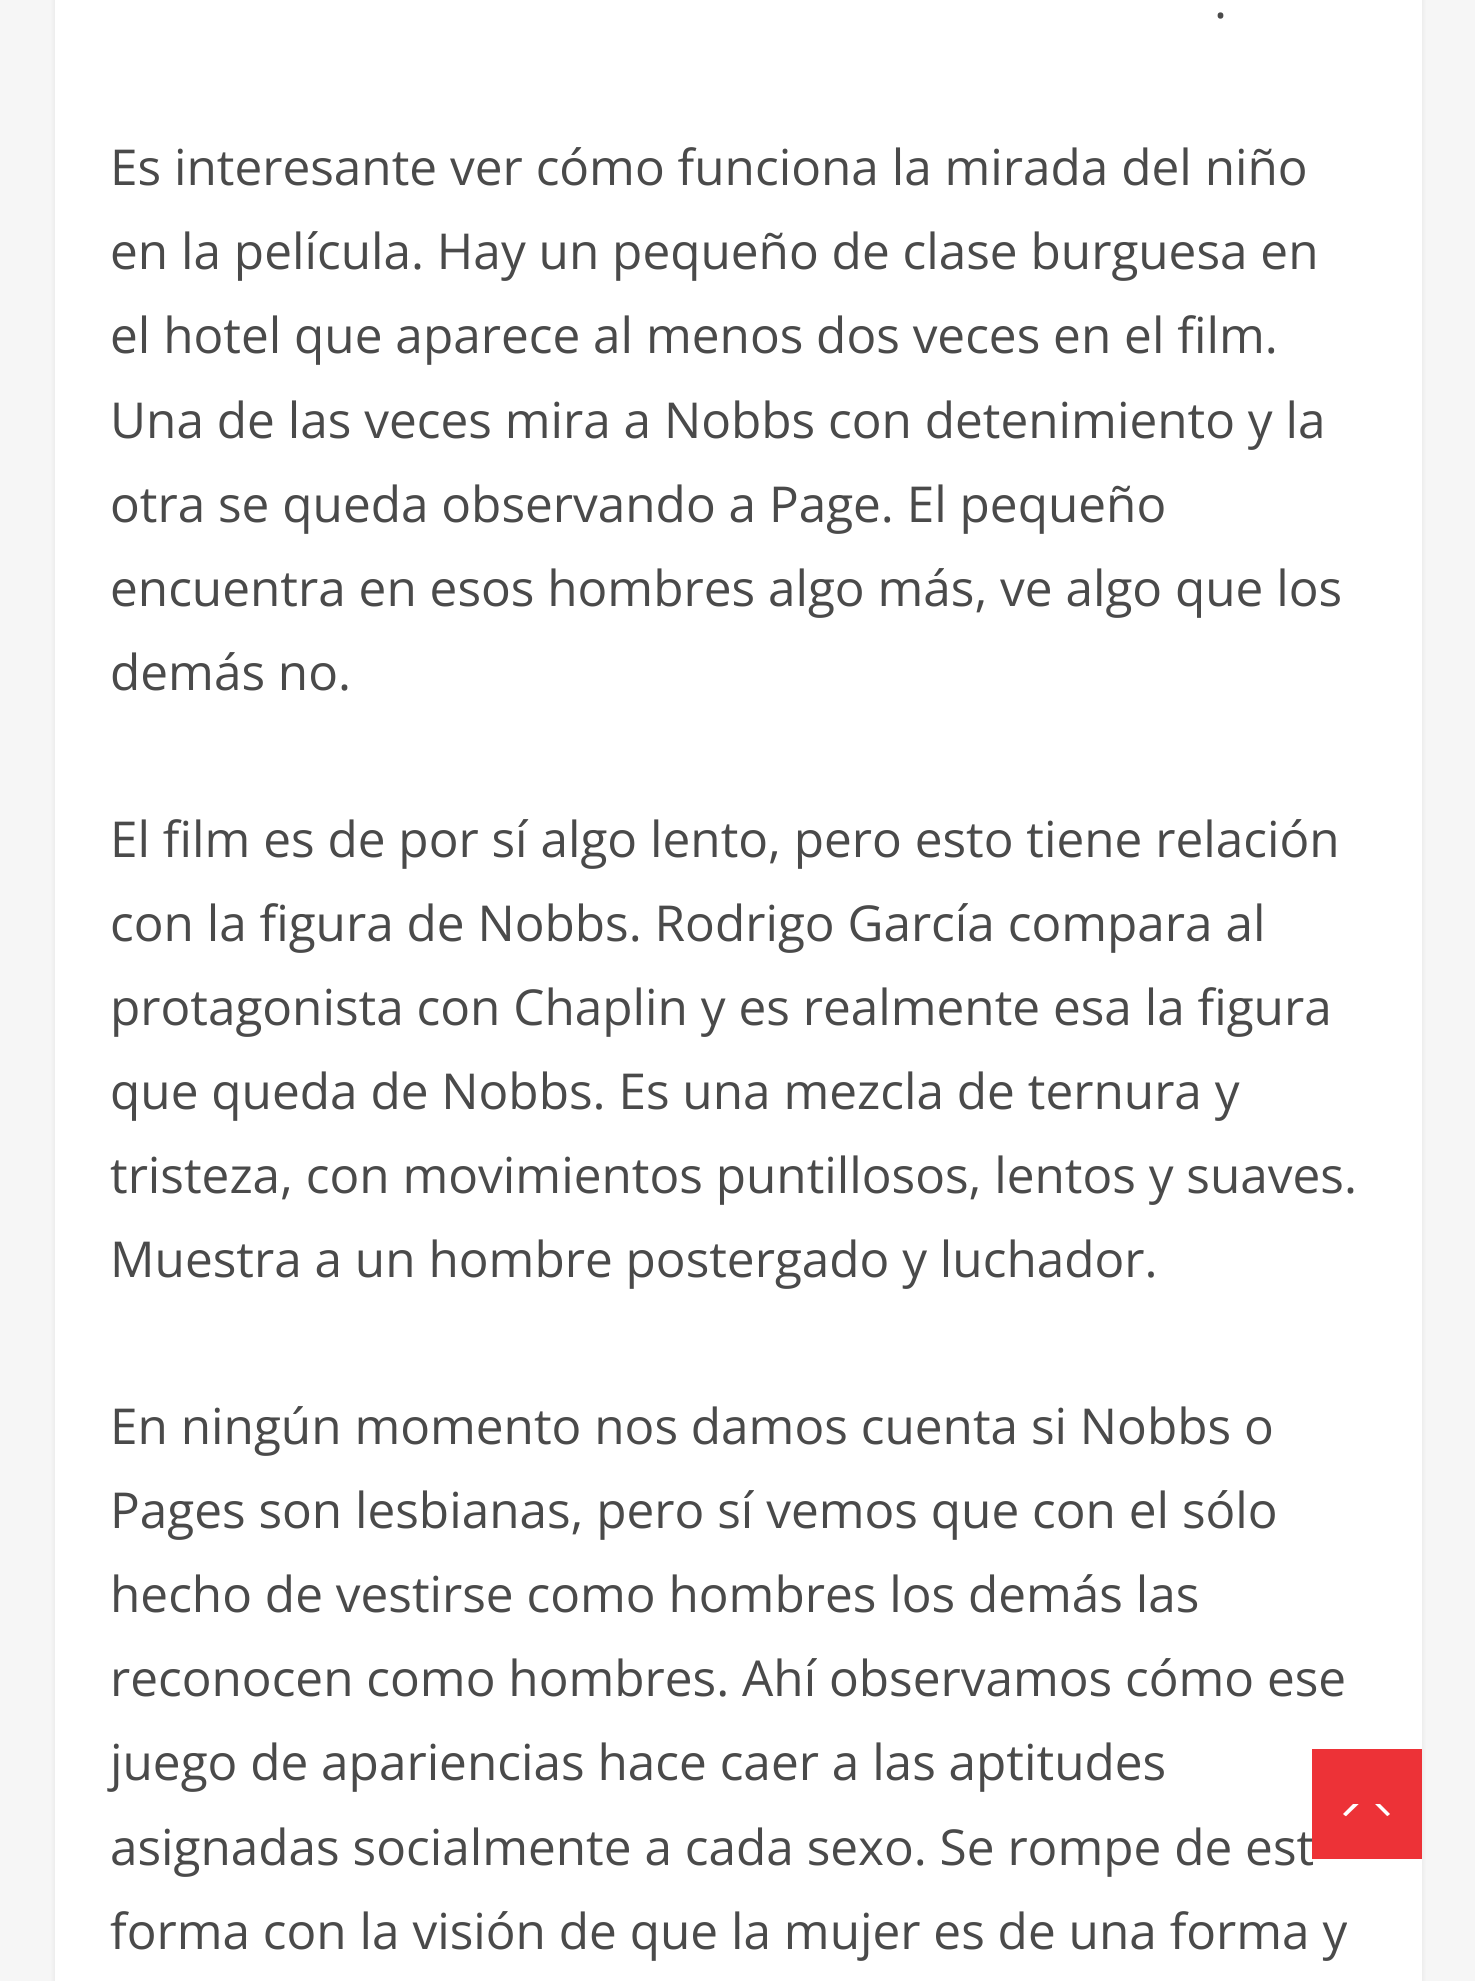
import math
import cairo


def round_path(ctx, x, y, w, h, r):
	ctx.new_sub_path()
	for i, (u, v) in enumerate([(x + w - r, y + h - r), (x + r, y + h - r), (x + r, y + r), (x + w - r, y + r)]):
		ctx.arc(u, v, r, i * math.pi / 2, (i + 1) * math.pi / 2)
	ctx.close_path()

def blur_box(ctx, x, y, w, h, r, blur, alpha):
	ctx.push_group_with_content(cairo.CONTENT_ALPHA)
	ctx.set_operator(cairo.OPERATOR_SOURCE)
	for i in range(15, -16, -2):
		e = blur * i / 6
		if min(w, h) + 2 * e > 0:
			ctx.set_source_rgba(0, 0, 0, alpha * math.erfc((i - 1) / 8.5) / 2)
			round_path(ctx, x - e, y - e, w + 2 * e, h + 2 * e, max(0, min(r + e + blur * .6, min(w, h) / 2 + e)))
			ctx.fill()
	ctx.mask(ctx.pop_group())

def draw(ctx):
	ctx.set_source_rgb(0.961, 0.961, 0.961)
	ctx.paint()
	ctx.set_source_rgb(0, 0, 0)
	blur_box(ctx, 55, -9, 1367, 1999, 0, 3, 0.08)
	ctx.set_source_rgb(1, 1, 1)
	ctx.rectangle(55, 0, 1367, 1981)
	ctx.fill()
	ctx.select_font_face('Open Sans')
	ctx.set_font_size(49.5)
	ctx.set_source_rgb(0.29, 0.29, 0.29)
	for x, y, s in [
		(1214, 18, '.'),
		(110, 185, 'Es interesante ver cómo funciona la mirada del niño'),
		(110, 269, 'en la película. Hay un pequeño de clase burguesa en'),
		(110, 353, 'el hotel que aparece al menos dos veces en el film.'),
		(110, 438, 'Una de las veces mira a Nobbs con detenimiento y la'),
		(110, 522, 'otra se queda observando a Page. El pequeño'),
		(110, 606, 'encuentra en esos hombres algo más, ve algo que los'),
		(110, 690, 'demás no.'),
		(110, 857, 'El film es de por sí algo lento, pero esto tiene relación'),
		(110, 941, 'con la figura de Nobbs. Rodrigo García compara al'),
		(110, 1025, 'protagonista con Chaplin y es realmente esa la figura'),
		(110, 1109, 'que queda de Nobbs. Es una mezcla de ternura y'),
		(110, 1193, 'tristeza, con movimientos puntillosos, lentos y suaves.'),
		(110, 1277, 'Muestra a un hombre postergado y luchador.'),
		(110, 1444, 'En ningún momento nos damos cuenta si Nobbs o'),
		(110, 1528, 'Pages son lesbianas, pero sí vemos que con el sólo'),
		(110, 1612, 'hecho de vestirse como hombres los demás las'),
		(110, 1696, 'reconocen como hombres. Ahí observamos cómo ese'),
		(110, 1780, 'juego de apariencias hace caer a las aptitudes'),
		(110, 1865, 'asignadas socialmente a cada sexo. Se rompe de est'),
		(110, 1949, 'forma con la visión de que la mujer es de una forma y'),
	]:
		ctx.move_to(x, y)
		ctx.show_text(s)
	ctx.set_source_rgb(0.929, 0.196, 0.216)
	ctx.rectangle(1312, 1749, 110, 110)
	ctx.fill()
	ctx.set_source_rgb(1, 1, 1)
	ctx.new_path()
	ctx.move_to(1350, 1818)
	ctx.curve_to(1347, 1817, 1345, 1816, 1343, 1814)
	ctx.line_to(1353, 1804)
	ctx.line_to(1380, 1804)
	ctx.line_to(1390, 1814)
	ctx.curve_to(1388, 1816, 1386, 1817, 1383, 1818)
	ctx.close_path()
	ctx.fill()
	ctx.set_source_rgb(0.929, 0.196, 0.216)
	ctx.new_path()
	ctx.move_to(1394, 1823)
	ctx.line_to(1339, 1823)
	ctx.line_to(1367, 1796)
	ctx.close_path()
	ctx.fill()


surface = cairo.ImageSurface(cairo.FORMAT_RGB24, 1475, 1981)
ctx = cairo.Context(surface)
options = cairo.FontOptions()
options.set_hint_metrics(cairo.HINT_METRICS_OFF)
options.set_hint_style(cairo.HINT_STYLE_NONE)
ctx.set_font_options(options)
ctx.set_miter_limit(4)
draw(ctx)
surface.write_to_png('image.png')
